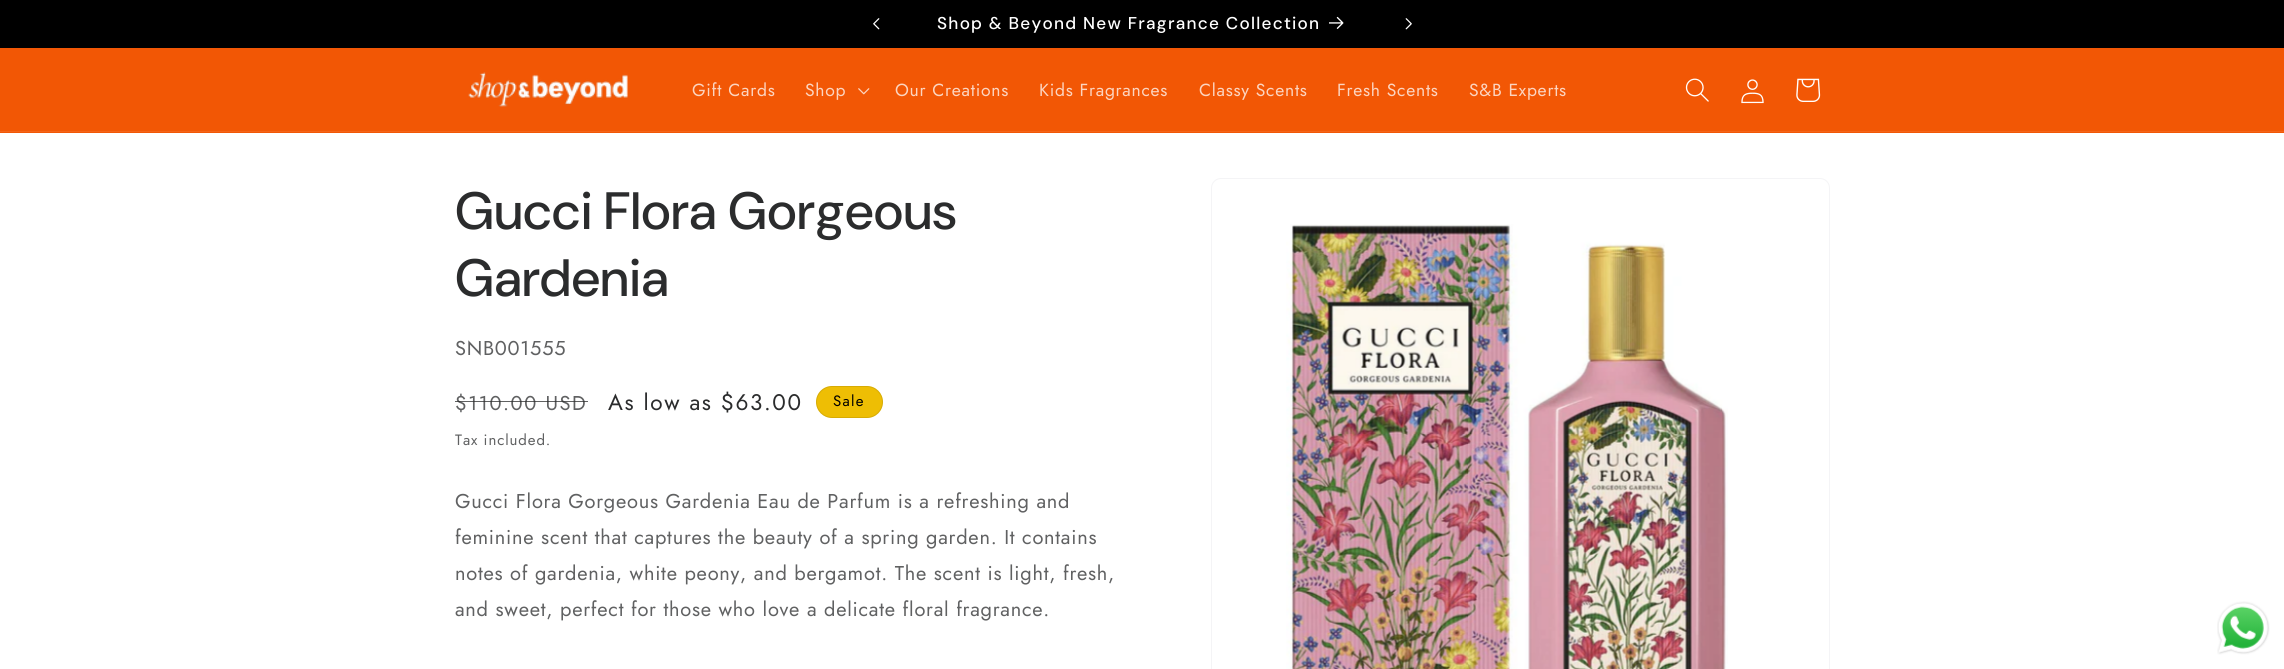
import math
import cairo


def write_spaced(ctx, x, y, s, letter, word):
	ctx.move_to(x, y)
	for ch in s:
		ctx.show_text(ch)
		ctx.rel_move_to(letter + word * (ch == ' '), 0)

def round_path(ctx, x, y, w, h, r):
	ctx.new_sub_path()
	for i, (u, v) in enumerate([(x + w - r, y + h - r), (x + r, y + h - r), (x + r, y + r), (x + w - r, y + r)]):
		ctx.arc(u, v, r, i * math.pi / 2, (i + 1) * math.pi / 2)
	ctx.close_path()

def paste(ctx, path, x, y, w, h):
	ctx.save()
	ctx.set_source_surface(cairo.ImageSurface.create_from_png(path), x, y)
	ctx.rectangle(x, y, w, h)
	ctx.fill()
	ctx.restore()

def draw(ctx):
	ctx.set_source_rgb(1, 1, 1)
	ctx.paint()
	ctx.set_source_rgb(0, 0, 0)
	ctx.rectangle(0, 0, 2284, 48)
	ctx.fill()
	paste(ctx, 'media/1.png', 873, 18, 7, 12)
	ctx.select_font_face('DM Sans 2 Medium')
	ctx.set_font_size(17.1)
	ctx.set_source_rgb(1, 1, 1)
	write_spaced(ctx, 937, 29, 'Shop & Beyond New Fragrance Collection', 1.25, 0)
	paste(ctx, 'media/2.png', 1329, 16, 15, 13)
	paste(ctx, 'media/3.png', 1405, 18, 7, 12)
	ctx.set_source_rgb(0.949, 0.341, 0.02)
	ctx.rectangle(0, 48, 2284, 85)
	ctx.fill()
	ctx.set_source_rgb(0.953, 0.392, 0.098)
	ctx.rectangle(0, 131, 2284, 1)
	ctx.fill()
	paste(ctx, 'media/4.png', 468, 72, 160, 35)
	ctx.select_font_face('Jost')
	ctx.set_font_size(17.5)
	ctx.set_source_rgb(0.988, 0.835, 0.757)
	write_spaced(ctx, 692, 96, 'Gift Cards', 0.75, 0)
	write_spaced(ctx, 805, 96, 'Shop', 0.75, 0)
	paste(ctx, 'media/5.png', 858, 88, 12, 7)
	for x, y, s in [
		(895, 96, 'Our Creations'),
		(1039, 96, 'Kids Fragrances'),
		(1199, 96, 'Classy Scents'),
		(1337, 96, 'Fresh Scents'),
		(1469, 96, 'S&B Experts'),
	]:
		write_spaced(ctx, x, y, s, 0.75, 0)
	paste(ctx, 'media/6.png', 1685, 78, 24, 24)
	paste(ctx, 'media/7.png', 1741, 79, 23, 25)
	paste(ctx, 'media/8.png', 1796, 78, 25, 24)
	ctx.select_font_face('DM Sans Medium')
	ctx.set_font_size(52.5)
	ctx.set_source_rgb(0.169, 0.173, 0.176)
	write_spaced(ctx, 455, 229, 'Gucci Flora Gorgeous', 0.75, 0)
	write_spaced(ctx, 455, 296, 'Gardenia', 0.75, 0)
	ctx.select_font_face('Jost')
	ctx.set_font_size(20)
	ctx.set_source_rgb(0.376, 0.38, 0.384)
	write_spaced(ctx, 455, 355, 'SNB001555', 0.75, 0)
	write_spaced(ctx, 455, 410, '$110.00 USD', 1.6, 0)
	ctx.set_source_rgba(0.169, 0.173, 0.176, 0.75)
	ctx.rectangle(455, 401, 133, 1)
	ctx.fill()
	ctx.set_font_size(22.5)
	ctx.set_source_rgb(0.169, 0.173, 0.176)
	write_spaced(ctx, 608, 410, 'As low as $63.00', 1.6, 0)
	ctx.set_source_rgb(0.933, 0.745, 0.016)
	round_path(ctx, 816, 386, 67, 32, 16)
	ctx.fill()
	round_path(ctx, 816.5, 386.5, 66, 31, 15.5)
	ctx.set_source_rgba(0, 0, 0, 0.1)
	ctx.set_line_width(1)
	ctx.stroke()
	ctx.set_font_size(15)
	ctx.set_source_rgb(0, 0, 0)
	write_spaced(ctx, 833, 406, 'Sale', 1.25, 0)
	ctx.set_source_rgb(0.376, 0.38, 0.384)
	write_spaced(ctx, 455, 445, 'Tax included.', 0.9, 0)
	ctx.set_font_size(20)
	for x, y, s in [
		(455, 508, 'Gucci Flora Gorgeous Gardenia Eau de Parfum is a refreshing and'),
		(455, 544, 'feminine scent that captures the beauty of a spring garden. It contains'),
		(455, 580, 'notes of gardenia, white peony, and bergamot. The scent is light, fresh,'),
		(455, 616, 'and sweet, perfect for those who love a delicate floral fragrance.'),
	]:
		write_spaced(ctx, x, y, s, 0.75, 0)
	round_path(ctx, 1211.5, 178.5, 618, 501, 9.5)
	ctx.set_source_rgb(0.957, 0.957, 0.961)
	ctx.stroke()
	paste(ctx, 'media/9.png', 1286, 224, 442, 445)
	paste(ctx, 'media/10.png', 2217, 601, 53, 54)


surface = cairo.ImageSurface(cairo.FORMAT_RGB24, 2284, 669)
ctx = cairo.Context(surface)
options = cairo.FontOptions()
options.set_hint_metrics(cairo.HINT_METRICS_OFF)
options.set_hint_style(cairo.HINT_STYLE_NONE)
ctx.set_font_options(options)
ctx.set_miter_limit(4)
draw(ctx)
surface.write_to_png('image.png')
